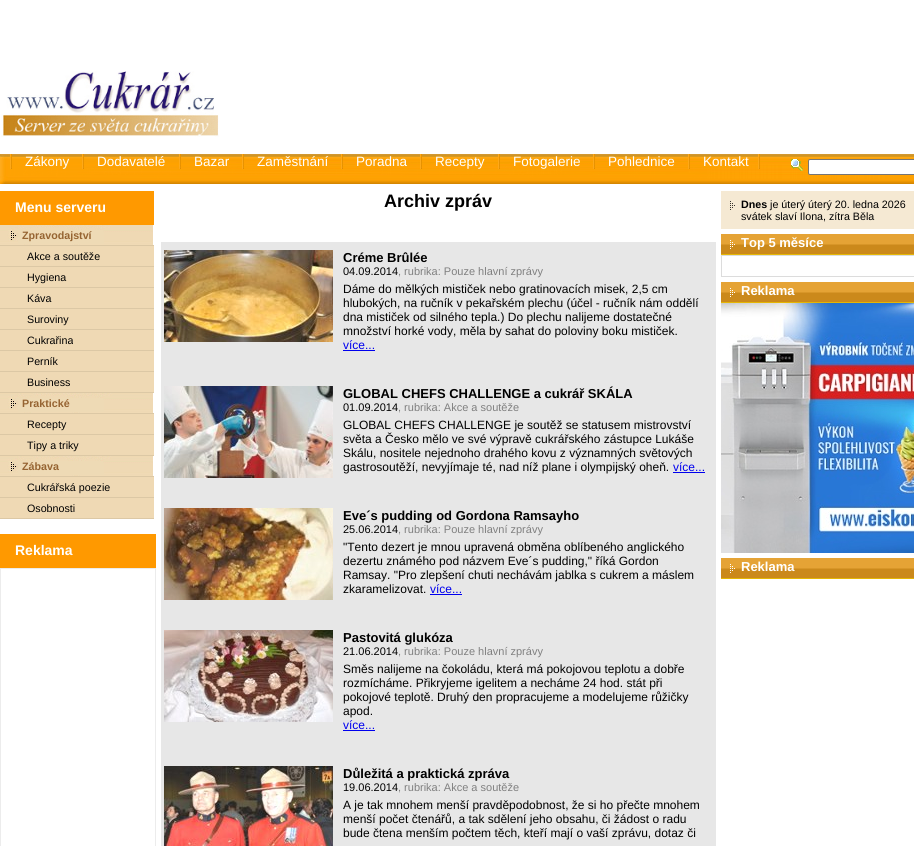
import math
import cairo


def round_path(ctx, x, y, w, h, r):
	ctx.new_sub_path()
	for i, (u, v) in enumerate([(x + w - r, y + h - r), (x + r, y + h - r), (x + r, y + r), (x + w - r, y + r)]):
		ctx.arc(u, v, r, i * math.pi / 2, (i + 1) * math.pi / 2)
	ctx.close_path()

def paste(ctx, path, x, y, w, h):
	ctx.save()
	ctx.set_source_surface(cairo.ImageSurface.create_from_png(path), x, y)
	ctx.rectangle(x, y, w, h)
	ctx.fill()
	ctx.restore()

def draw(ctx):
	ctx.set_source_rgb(1, 1, 1)
	ctx.paint()
	paste(ctx, 'media/1.png', 1, 71, 218, 66)
	paste(ctx, 'media/2.png', 0, 154, 914, 30)
	paste(ctx, 'media/3.png', 10, 154, 2, 15)
	ctx.select_font_face('Liberation Sans')
	ctx.set_font_size(13.5)
	ctx.set_source_rgb(1, 1, 1)
	ctx.move_to(25, 166)
	ctx.show_text('Zákony')
	paste(ctx, 'media/3.png', 82, 154, 2, 15)
	ctx.move_to(97, 166)
	ctx.show_text('Dodavatelé')
	paste(ctx, 'media/3.png', 179, 154, 2, 15)
	ctx.move_to(194, 166)
	ctx.show_text('Bazar')
	paste(ctx, 'media/3.png', 242, 154, 2, 15)
	ctx.move_to(257, 166)
	ctx.show_text('Zaměstnání')
	paste(ctx, 'media/3.png', 341, 154, 2, 15)
	ctx.move_to(356, 166)
	ctx.show_text('Poradna')
	paste(ctx, 'media/3.png', 420, 154, 2, 15)
	ctx.move_to(435, 166)
	ctx.show_text('Recepty')
	paste(ctx, 'media/3.png', 498, 154, 2, 15)
	ctx.move_to(513, 166)
	ctx.show_text('Fotogalerie')
	paste(ctx, 'media/3.png', 593, 154, 2, 15)
	ctx.move_to(608, 166)
	ctx.show_text('Pohlednice')
	paste(ctx, 'media/3.png', 688, 154, 2, 15)
	ctx.move_to(703, 166)
	ctx.show_text('Kontakt')
	paste(ctx, 'media/3.png', 758, 154, 2, 15)
	paste(ctx, 'media/4.png', 791, 159, 12, 12)
	round_path(ctx, 808.5, 159.5, 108, 15, 1.5)
	ctx.fill_preserve()
	ctx.set_source_rgb(0.463, 0.463, 0.463)
	ctx.set_line_width(1)
	ctx.stroke()
	ctx.set_source_rgb(1, 0.6, 0)
	ctx.rectangle(0, 191, 154, 34)
	ctx.fill()
	ctx.select_font_face('Liberation Sans', cairo.FONT_SLANT_NORMAL, cairo.FONT_WEIGHT_BOLD)
	ctx.set_font_size(14)
	ctx.set_source_rgb(1, 1, 1)
	ctx.move_to(15, 212)
	ctx.show_text('Menu serveru')
	paste(ctx, 'media/5.png', 0, 225, 153, 20)
	ctx.set_source_rgb(0.863, 0.784, 0.647)
	ctx.rectangle(0, 245, 154, 1)
	ctx.fill()
	ctx.set_font_size(10.7)
	ctx.set_source_rgb(0.588, 0.392, 0.196)
	ctx.move_to(22, 239)
	ctx.show_text('Zpravodajství')
	ctx.set_source_rgb(0.937, 0.851, 0.706)
	ctx.rectangle(0, 246, 154, 20)
	ctx.fill()
	ctx.set_source_rgb(0.863, 0.784, 0.647)
	ctx.rectangle(0, 266, 154, 1)
	ctx.fill()
	ctx.select_font_face('Liberation Sans')
	ctx.set_source_rgb(0, 0, 0)
	ctx.move_to(27, 260)
	ctx.show_text('Akce a soutěže')
	ctx.set_source_rgb(0.937, 0.851, 0.706)
	ctx.rectangle(0, 267, 154, 20)
	ctx.fill()
	ctx.set_source_rgb(0.863, 0.784, 0.647)
	ctx.rectangle(0, 287, 154, 1)
	ctx.fill()
	ctx.set_source_rgb(0, 0, 0)
	ctx.move_to(27, 281)
	ctx.show_text('Hygiena')
	ctx.set_source_rgb(0.937, 0.851, 0.706)
	ctx.rectangle(0, 288, 154, 20)
	ctx.fill()
	ctx.set_source_rgb(0.863, 0.784, 0.647)
	ctx.rectangle(0, 308, 154, 1)
	ctx.fill()
	ctx.set_source_rgb(0, 0, 0)
	ctx.move_to(27, 302)
	ctx.show_text('Káva')
	ctx.set_source_rgb(0.937, 0.851, 0.706)
	ctx.rectangle(0, 309, 154, 20)
	ctx.fill()
	ctx.set_source_rgb(0.863, 0.784, 0.647)
	ctx.rectangle(0, 329, 154, 1)
	ctx.fill()
	ctx.set_source_rgb(0, 0, 0)
	ctx.move_to(27, 323)
	ctx.show_text('Suroviny')
	ctx.set_source_rgb(0.937, 0.851, 0.706)
	ctx.rectangle(0, 330, 154, 20)
	ctx.fill()
	ctx.set_source_rgb(0.863, 0.784, 0.647)
	ctx.rectangle(0, 350, 154, 1)
	ctx.fill()
	ctx.set_source_rgb(0, 0, 0)
	ctx.move_to(27, 344)
	ctx.show_text('Cukrařina')
	ctx.set_source_rgb(0.937, 0.851, 0.706)
	ctx.rectangle(0, 351, 154, 20)
	ctx.fill()
	ctx.set_source_rgb(0.863, 0.784, 0.647)
	ctx.rectangle(0, 371, 154, 1)
	ctx.fill()
	ctx.set_source_rgb(0, 0, 0)
	ctx.move_to(27, 365)
	ctx.show_text('Perník')
	ctx.set_source_rgb(0.937, 0.851, 0.706)
	ctx.rectangle(0, 372, 154, 20)
	ctx.fill()
	ctx.set_source_rgb(0.863, 0.784, 0.647)
	ctx.rectangle(0, 392, 154, 1)
	ctx.fill()
	ctx.set_source_rgb(0, 0, 0)
	ctx.move_to(27, 386)
	ctx.show_text('Business')
	paste(ctx, 'media/5.png', 0, 393, 153, 20)
	ctx.set_source_rgb(0.863, 0.784, 0.647)
	ctx.rectangle(0, 413, 154, 1)
	ctx.fill()
	ctx.select_font_face('Liberation Sans', cairo.FONT_SLANT_NORMAL, cairo.FONT_WEIGHT_BOLD)
	ctx.set_source_rgb(0.588, 0.392, 0.196)
	ctx.move_to(22, 407)
	ctx.show_text('Praktické')
	ctx.set_source_rgb(0.937, 0.851, 0.706)
	ctx.rectangle(0, 414, 154, 20)
	ctx.fill()
	ctx.set_source_rgb(0.863, 0.784, 0.647)
	ctx.rectangle(0, 434, 154, 1)
	ctx.fill()
	ctx.select_font_face('Liberation Sans')
	ctx.set_source_rgb(0, 0, 0)
	ctx.move_to(27, 428)
	ctx.show_text('Recepty')
	ctx.set_source_rgb(0.937, 0.851, 0.706)
	ctx.rectangle(0, 435, 154, 20)
	ctx.fill()
	ctx.set_source_rgb(0.863, 0.784, 0.647)
	ctx.rectangle(0, 455, 154, 1)
	ctx.fill()
	ctx.set_source_rgb(0, 0, 0)
	ctx.move_to(27, 449)
	ctx.show_text('Tipy a triky')
	paste(ctx, 'media/5.png', 0, 456, 153, 20)
	ctx.set_source_rgb(0.863, 0.784, 0.647)
	ctx.rectangle(0, 476, 154, 1)
	ctx.fill()
	ctx.select_font_face('Liberation Sans', cairo.FONT_SLANT_NORMAL, cairo.FONT_WEIGHT_BOLD)
	ctx.set_source_rgb(0.588, 0.392, 0.196)
	ctx.move_to(22, 470)
	ctx.show_text('Zábava')
	ctx.set_source_rgb(0.937, 0.851, 0.706)
	ctx.rectangle(0, 477, 154, 20)
	ctx.fill()
	ctx.set_source_rgb(0.863, 0.784, 0.647)
	ctx.rectangle(0, 497, 154, 1)
	ctx.fill()
	ctx.select_font_face('Liberation Sans')
	ctx.set_source_rgb(0, 0, 0)
	ctx.move_to(27, 491)
	ctx.show_text('Cukrářská poezie')
	ctx.set_source_rgb(0.937, 0.851, 0.706)
	ctx.rectangle(0, 498, 154, 20)
	ctx.fill()
	ctx.set_source_rgb(0.863, 0.784, 0.647)
	ctx.rectangle(0, 518, 154, 1)
	ctx.fill()
	ctx.set_source_rgb(0, 0, 0)
	ctx.move_to(27, 512)
	ctx.show_text('Osobnosti')
	ctx.set_source_rgb(1, 0.6, 0)
	ctx.rectangle(0, 534, 156, 34)
	ctx.fill()
	ctx.select_font_face('Liberation Sans', cairo.FONT_SLANT_NORMAL, cairo.FONT_WEIGHT_BOLD)
	ctx.set_font_size(14)
	ctx.set_source_rgb(1, 1, 1)
	ctx.move_to(15, 555)
	ctx.show_text('Reklama')
	ctx.rectangle(0.5, 568.5, 155, 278)
	ctx.set_source_rgb(0.922, 0.922, 0.922)
	ctx.stroke()
	ctx.set_font_size(18)
	ctx.set_source_rgb(0, 0, 0)
	ctx.move_to(384, 207)
	ctx.show_text('Archiv zpráv')
	ctx.set_source_rgb(0.906, 0.906, 0.906)
	ctx.rectangle(161, 242, 555, 604)
	ctx.fill()
	paste(ctx, 'media/6.png', 164, 250, 169, 92)
	ctx.set_font_size(13)
	ctx.set_source_rgb(0, 0, 0)
	ctx.move_to(343, 262)
	ctx.show_text('Créme Brûlée')
	ctx.select_font_face('Liberation Sans')
	ctx.set_font_size(11)
	ctx.move_to(343, 275)
	ctx.show_text('04.09.2014')
	ctx.set_source_rgb(0.502, 0.502, 0.502)
	ctx.move_to(398, 275)
	ctx.show_text(', rubrika: Pouze hlavní zprávy')
	ctx.set_font_size(12)
	ctx.set_source_rgb(0, 0, 0)
	for x, y, s in [
		(343, 293, 'Dáme do mělkých mističek nebo gratinovacích misek, 2,5 cm'),
		(343, 307, 'hlubokých, na ručník v pekařském plechu (účel - ručník nám oddělí'),
		(343, 321, 'dna mističek od silného tepla.) Do plechu nalijeme dostatečné'),
		(343, 335, 'množství horké vody, měla by sahat do poloviny boku mističek.'),
	]:
		ctx.move_to(x, y)
		ctx.show_text(s)
	ctx.set_source_rgb(0, 0, 0.933)
	ctx.move_to(343, 349)
	ctx.show_text('více...')
	ctx.rectangle(343, 350, 32, 1)
	ctx.fill()
	paste(ctx, 'media/7.png', 164, 386, 169, 92)
	ctx.select_font_face('Liberation Sans', cairo.FONT_SLANT_NORMAL, cairo.FONT_WEIGHT_BOLD)
	ctx.set_font_size(13)
	ctx.set_source_rgb(0, 0, 0)
	ctx.move_to(343, 398)
	ctx.show_text('GLOBAL CHEFS CHALLENGE a cukrář SKÁLA')
	ctx.select_font_face('Liberation Sans')
	ctx.set_font_size(11)
	ctx.move_to(343, 411)
	ctx.show_text('01.09.2014')
	ctx.set_source_rgb(0.502, 0.502, 0.502)
	ctx.move_to(398, 411)
	ctx.show_text(', rubrika: Akce a soutěže')
	ctx.set_font_size(12)
	ctx.set_source_rgb(0, 0, 0)
	for x, y, s in [
		(343, 429, 'GLOBAL CHEFS CHALLENGE je soutěž se statusem mistrovství'),
		(343, 443, 'světa a Česko mělo ve své výpravě cukrářského zástupce Lukáše'),
		(343, 457, 'Skálu, nositele nejednoho drahého kovu z významných světových'),
		(343, 471, 'gastrosoutěží, nevyjímaje té, nad níž plane i olympijský oheň.'),
	]:
		ctx.move_to(x, y)
		ctx.show_text(s)
	ctx.set_source_rgb(0, 0, 0.933)
	ctx.move_to(673, 471)
	ctx.show_text('více...')
	ctx.rectangle(673, 472, 32, 1)
	ctx.fill()
	paste(ctx, 'media/8.png', 164, 508, 169, 92)
	ctx.select_font_face('Liberation Sans', cairo.FONT_SLANT_NORMAL, cairo.FONT_WEIGHT_BOLD)
	ctx.set_font_size(13)
	ctx.set_source_rgb(0, 0, 0)
	ctx.move_to(343, 520)
	ctx.show_text('Eve´s pudding od Gordona Ramsayho')
	ctx.select_font_face('Liberation Sans')
	ctx.set_font_size(11)
	ctx.move_to(343, 533)
	ctx.show_text('25.06.2014')
	ctx.set_source_rgb(0.502, 0.502, 0.502)
	ctx.move_to(398, 533)
	ctx.show_text(', rubrika: Pouze hlavní zprávy')
	ctx.set_font_size(12)
	ctx.set_source_rgb(0, 0, 0)
	for x, y, s in [
		(343, 551, '"Tento dezert je mnou upravená obměna oblíbeného anglického'),
		(343, 565, 'dezertu známého pod názvem Eve´s pudding," říká Gordon'),
		(343, 579, 'Ramsay. "Pro zlepšení chuti nechávám jablka s cukrem a máslem'),
		(343, 593, 'zkaramelizovat.'),
	]:
		ctx.move_to(x, y)
		ctx.show_text(s)
	ctx.set_source_rgb(0, 0, 0.933)
	ctx.move_to(430, 593)
	ctx.show_text('více...')
	ctx.rectangle(430, 594, 32, 1)
	ctx.fill()
	paste(ctx, 'media/9.png', 164, 630, 169, 92)
	ctx.select_font_face('Liberation Sans', cairo.FONT_SLANT_NORMAL, cairo.FONT_WEIGHT_BOLD)
	ctx.set_font_size(13)
	ctx.set_source_rgb(0, 0, 0)
	ctx.move_to(343, 642)
	ctx.show_text('Pastovitá glukóza')
	ctx.select_font_face('Liberation Sans')
	ctx.set_font_size(11)
	ctx.move_to(343, 655)
	ctx.show_text('21.06.2014')
	ctx.set_source_rgb(0.502, 0.502, 0.502)
	ctx.move_to(398, 655)
	ctx.show_text(', rubrika: Pouze hlavní zprávy')
	ctx.set_font_size(12)
	ctx.set_source_rgb(0, 0, 0)
	for x, y, s in [
		(343, 673, 'Směs nalijeme na čokoládu, která má pokojovou teplotu a dobře'),
		(343, 687, 'rozmícháme. Přikryjeme igelitem a necháme 24 hod. stát při'),
		(343, 701, 'pokojové teplotě. Druhý den propracujeme a modelujeme růžičky'),
		(343, 715, 'apod.'),
	]:
		ctx.move_to(x, y)
		ctx.show_text(s)
	ctx.set_source_rgb(0, 0, 0.933)
	ctx.move_to(343, 729)
	ctx.show_text('více...')
	ctx.rectangle(343, 730, 32, 1)
	ctx.fill()
	paste(ctx, 'media/10.png', 164, 766, 169, 80)
	ctx.select_font_face('Liberation Sans', cairo.FONT_SLANT_NORMAL, cairo.FONT_WEIGHT_BOLD)
	ctx.set_font_size(13)
	ctx.set_source_rgb(0, 0, 0)
	ctx.move_to(343, 778)
	ctx.show_text('Důležitá a praktická zpráva')
	ctx.select_font_face('Liberation Sans')
	ctx.set_font_size(11)
	ctx.move_to(343, 791)
	ctx.show_text('19.06.2014')
	ctx.set_source_rgb(0.502, 0.502, 0.502)
	ctx.move_to(398, 791)
	ctx.show_text(', rubrika: Akce a soutěže')
	ctx.set_font_size(12)
	ctx.set_source_rgb(0, 0, 0)
	for x, y, s in [
		(343, 809, 'A je tak mnohem menší pravděpodobnost, že si ho přečte mnohem'),
		(343, 823, 'menší počet čtenářů, a tak sdělení jeho obsahu, či žádost o radu'),
		(343, 837, 'bude čtena menším počtem těch, kteří mají o vaší zprávu, dotaz či'),
	]:
		ctx.move_to(x, y)
		ctx.show_text(s)
	paste(ctx, 'media/11.png', 721, 191, 193, 38)
	ctx.select_font_face('Liberation Sans', cairo.FONT_SLANT_NORMAL, cairo.FONT_WEIGHT_BOLD)
	ctx.set_font_size(10.7)
	ctx.move_to(741, 208)
	ctx.show_text('Dnes')
	ctx.select_font_face('Liberation Sans')
	ctx.move_to(770, 208)
	ctx.show_text('je úterý úterý 20. ledna 2026')
	ctx.move_to(741, 220)
	ctx.show_text('svátek slaví Ilona, zítra Běla')
	ctx.set_source_rgb(0.898, 0.714, 0.016)
	ctx.rectangle(721, 254, 193, 1)
	ctx.fill()
	paste(ctx, 'media/12.png', 721, 234, 193, 20)
	ctx.select_font_face('Liberation Sans', cairo.FONT_SLANT_NORMAL, cairo.FONT_WEIGHT_BOLD)
	ctx.set_font_size(13)
	ctx.set_source_rgb(1, 1, 1)
	ctx.move_to(741, 247)
	ctx.show_text('Top 5 měsíce')
	ctx.rectangle(721.5, 255.5, 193, 21)
	ctx.set_source_rgb(0.863, 0.863, 0.863)
	ctx.stroke()
	ctx.set_source_rgb(0.898, 0.714, 0.016)
	ctx.rectangle(721, 302, 193, 1)
	ctx.fill()
	paste(ctx, 'media/12.png', 721, 282, 193, 20)
	ctx.set_source_rgb(1, 1, 1)
	ctx.move_to(741, 295)
	ctx.show_text('Reklama')
	paste(ctx, 'media/13.png', 721, 303, 193, 250)
	ctx.set_source_rgb(0.898, 0.714, 0.016)
	ctx.rectangle(721, 578, 193, 1)
	ctx.fill()
	paste(ctx, 'media/12.png', 721, 558, 193, 20)
	ctx.set_source_rgb(1, 1, 1)
	ctx.move_to(741, 571)
	ctx.show_text('Reklama')


surface = cairo.ImageSurface(cairo.FORMAT_RGB24, 914, 846)
ctx = cairo.Context(surface)
options = cairo.FontOptions()
options.set_hint_metrics(cairo.HINT_METRICS_OFF)
options.set_hint_style(cairo.HINT_STYLE_NONE)
ctx.set_font_options(options)
ctx.set_miter_limit(4)
draw(ctx)
surface.write_to_png('image.png')
